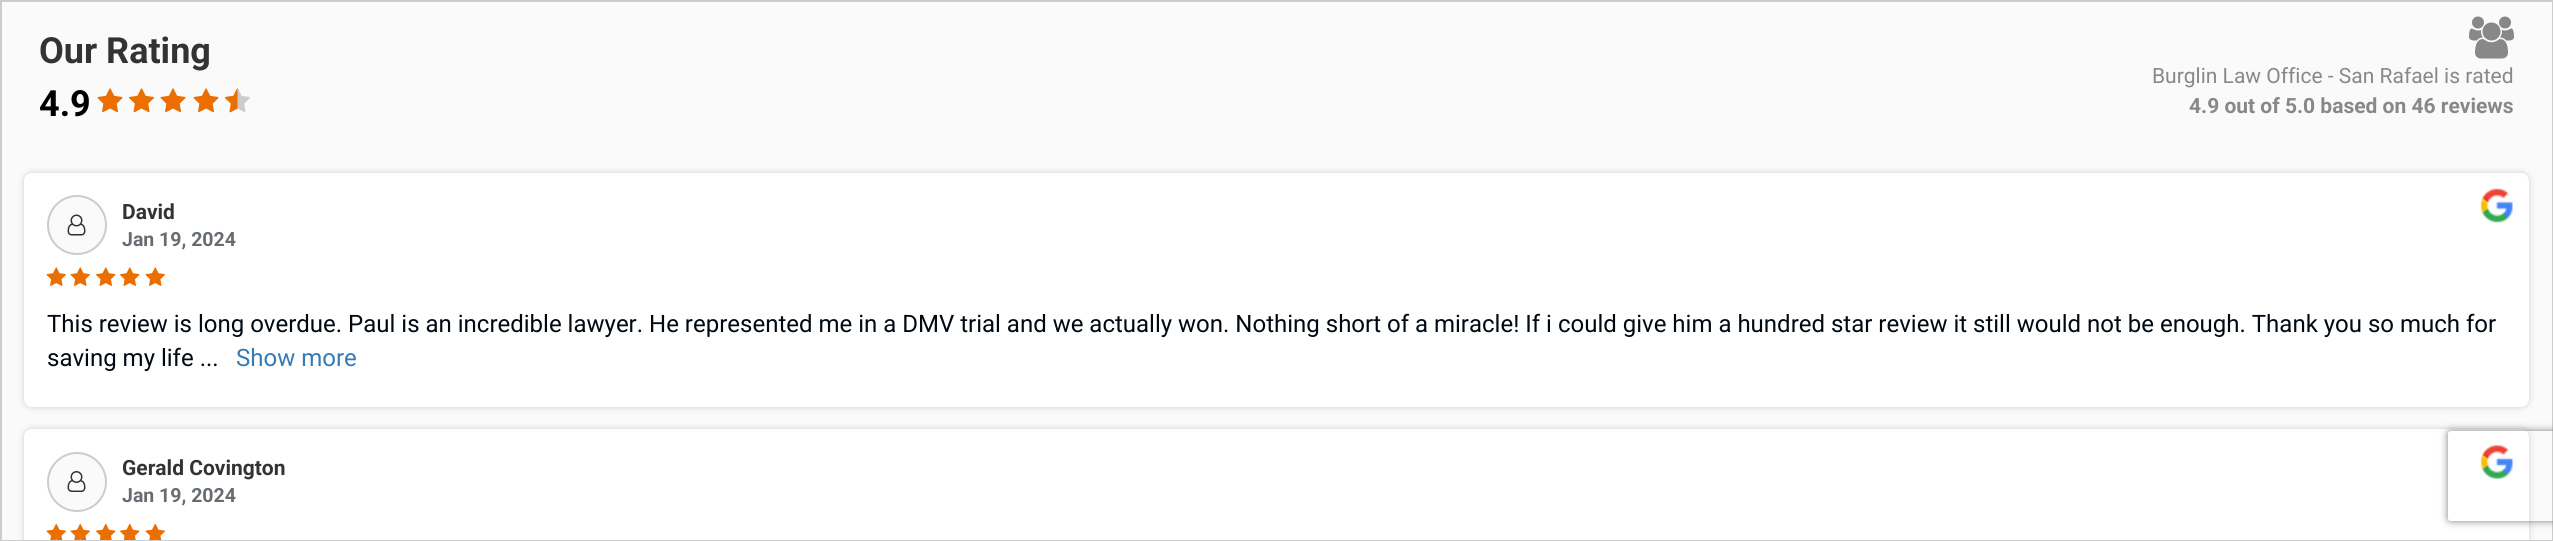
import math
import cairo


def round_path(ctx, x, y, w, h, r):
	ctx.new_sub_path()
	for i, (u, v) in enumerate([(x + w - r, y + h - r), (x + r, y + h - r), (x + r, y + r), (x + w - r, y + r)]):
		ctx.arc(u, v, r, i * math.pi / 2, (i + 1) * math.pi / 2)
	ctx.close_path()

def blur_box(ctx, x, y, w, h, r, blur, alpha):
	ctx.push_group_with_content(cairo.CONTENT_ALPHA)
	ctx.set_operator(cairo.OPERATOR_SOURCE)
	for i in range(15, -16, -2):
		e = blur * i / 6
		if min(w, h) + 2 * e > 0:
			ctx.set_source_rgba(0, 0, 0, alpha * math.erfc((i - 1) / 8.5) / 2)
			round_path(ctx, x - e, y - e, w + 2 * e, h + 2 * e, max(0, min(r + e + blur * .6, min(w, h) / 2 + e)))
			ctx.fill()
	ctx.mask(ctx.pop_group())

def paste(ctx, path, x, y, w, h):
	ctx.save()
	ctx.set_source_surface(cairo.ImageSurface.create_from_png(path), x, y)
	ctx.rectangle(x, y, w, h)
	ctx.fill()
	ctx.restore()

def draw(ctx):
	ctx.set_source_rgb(1, 1, 1)
	ctx.paint()
	ctx.rectangle(1, 1, 2551, 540)
	ctx.set_source_rgb(0.8, 0.8, 0.8)
	ctx.stroke()
	ctx.set_source_rgb(0.98, 0.98, 0.98)
	ctx.rectangle(2, 2, 2550, 538)
	ctx.fill()
	ctx.select_font_face('Roboto', cairo.FONT_SLANT_NORMAL, cairo.FONT_WEIGHT_BOLD)
	ctx.set_font_size(36)
	ctx.set_source_rgb(0.2, 0.2, 0.2)
	ctx.move_to(39, 63)
	ctx.show_text('Our Rating')
	ctx.set_source_rgb(0, 0, 0)
	ctx.move_to(39, 116)
	ctx.show_text('4.9')
	paste(ctx, 'media/1.png', 97, 88, 26, 25)
	paste(ctx, 'media/2.png', 129, 88, 25, 25)
	paste(ctx, 'media/1.png', 160, 88, 26, 25)
	paste(ctx, 'media/1.png', 193, 88, 26, 25)
	paste(ctx, 'media/3.png', 225, 88, 25, 25)
	paste(ctx, 'media/4.png', 225, 88, 13, 25)
	paste(ctx, 'media/5.png', 2469, 16, 45, 43)
	ctx.select_font_face('Roboto')
	ctx.set_font_size(21)
	ctx.set_source_rgb(0.533, 0.533, 0.533)
	ctx.move_to(2152, 83)
	ctx.show_text('Burglin Law Office - San Rafael is rated')
	ctx.select_font_face('Roboto', cairo.FONT_SLANT_NORMAL, cairo.FONT_WEIGHT_BOLD)
	ctx.move_to(2189, 113)
	ctx.show_text('4.9 out of 5.0 based on 46 reviews')
	ctx.set_source_rgb(0.8, 0.8, 0.8)
	blur_box(ctx, 24, 173, 2505, 234, 8, 3, 1)
	ctx.set_source_rgb(1, 1, 1)
	round_path(ctx, 24, 173, 2505, 234, 8)
	ctx.fill()
	ctx.set_source_rgb(0.98, 0.98, 0.98)
	ctx.arc(77, 225, 29, 0, 2 * math.pi)
	ctx.fill_preserve()
	ctx.set_source_rgb(0.8, 0.8, 0.8)
	ctx.stroke()
	paste(ctx, 'media/6.png', 67, 214, 19, 22)
	ctx.set_source_rgb(0.2, 0.2, 0.2)
	ctx.move_to(122, 219)
	ctx.show_text('David')
	ctx.set_font_size(19.5)
	ctx.set_source_rgb(0.4, 0.424, 0.443)
	ctx.move_to(122, 246)
	ctx.show_text('Jan 19, 2024')
	paste(ctx, 'media/7.png', 2480, 188, 33, 35)
	paste(ctx, 'media/8.png', 46, 267, 20, 19)
	paste(ctx, 'media/8.png', 70, 267, 20, 19)
	paste(ctx, 'media/9.png', 96, 267, 20, 19)
	paste(ctx, 'media/9.png', 120, 267, 20, 19)
	paste(ctx, 'media/8.png', 145, 267, 20, 19)
	ctx.select_font_face('Roboto')
	ctx.set_font_size(24)
	ctx.set_source_rgb(0, 0.039, 0.071)
	ctx.move_to(47, 332)
	ctx.show_text('This review is long overdue. Paul is an incredible lawyer. He represented me in a DMV trial and we actually won. Nothing short of a miracle! If i could give him a hundred star review it still would not be enough. Thank you so much for')
	ctx.move_to(47, 366)
	ctx.show_text('saving my life ...')
	ctx.set_source_rgb(0.2, 0.478, 0.718)
	ctx.move_to(236, 366)
	ctx.show_text('Show more')
	ctx.set_source_rgb(0.8, 0.8, 0.8)
	blur_box(ctx, 24, 429, 2505, 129, 8, 3, 1)
	ctx.set_source_rgb(1, 1, 1)
	ctx.new_path()
	ctx.move_to(32, 429)
	ctx.line_to(2521, 429)
	ctx.curve_to(2525.5, 429, 2529, 432.5, 2529, 437)
	ctx.line_to(2529, 540)
	ctx.line_to(24, 540)
	ctx.line_to(24, 437)
	ctx.curve_to(24, 432.5, 27.5, 429, 32, 429)
	ctx.close_path()
	ctx.fill()
	ctx.set_source_rgb(0.98, 0.98, 0.98)
	ctx.arc(77, 482, 29, 0, 2 * math.pi)
	ctx.fill_preserve()
	ctx.set_source_rgb(0.8, 0.8, 0.8)
	ctx.stroke()
	paste(ctx, 'media/10.png', 67, 471, 19, 21)
	ctx.select_font_face('Roboto', cairo.FONT_SLANT_NORMAL, cairo.FONT_WEIGHT_BOLD)
	ctx.set_font_size(21)
	ctx.set_source_rgb(0.2, 0.2, 0.2)
	ctx.move_to(122, 475)
	ctx.show_text('Gerald Covington')
	ctx.set_font_size(19.5)
	ctx.set_source_rgb(0.4, 0.424, 0.443)
	ctx.move_to(122, 502)
	ctx.show_text('Jan 19, 2024')
	paste(ctx, 'media/11.png', 2480, 445, 33, 34)
	paste(ctx, 'media/12.png', 46, 523, 20, 17)
	paste(ctx, 'media/12.png', 70, 523, 20, 17)
	paste(ctx, 'media/13.png', 96, 523, 20, 17)
	paste(ctx, 'media/13.png', 120, 523, 20, 17)
	paste(ctx, 'media/12.png', 145, 523, 20, 17)
	ctx.save()
	ctx.set_fill_rule(cairo.FILL_RULE_EVEN_ODD)
	ctx.new_path()
	ctx.move_to(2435, 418)
	ctx.line_to(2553, 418)
	ctx.line_to(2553, 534)
	ctx.line_to(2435, 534)
	ctx.close_path()
	ctx.move_to(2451, 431)
	ctx.line_to(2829, 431)
	ctx.curve_to(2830.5, 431, 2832, 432.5, 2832, 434)
	ctx.line_to(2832, 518)
	ctx.curve_to(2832, 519.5, 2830.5, 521, 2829, 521)
	ctx.line_to(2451, 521)
	ctx.curve_to(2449.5, 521, 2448, 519.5, 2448, 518)
	ctx.line_to(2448, 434)
	ctx.curve_to(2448, 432.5, 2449.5, 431, 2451, 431)
	ctx.close_path()
	ctx.clip()
	ctx.set_source_rgb(0.502, 0.502, 0.502)
	blur_box(ctx, 2448, 431, 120, 90, 3, 4, 1)
	ctx.restore()


surface = cairo.ImageSurface(cairo.FORMAT_RGB24, 2553, 541)
ctx = cairo.Context(surface)
options = cairo.FontOptions()
options.set_hint_metrics(cairo.HINT_METRICS_OFF)
options.set_hint_style(cairo.HINT_STYLE_NONE)
ctx.set_font_options(options)
ctx.set_miter_limit(4)
draw(ctx)
surface.write_to_png('image.png')
